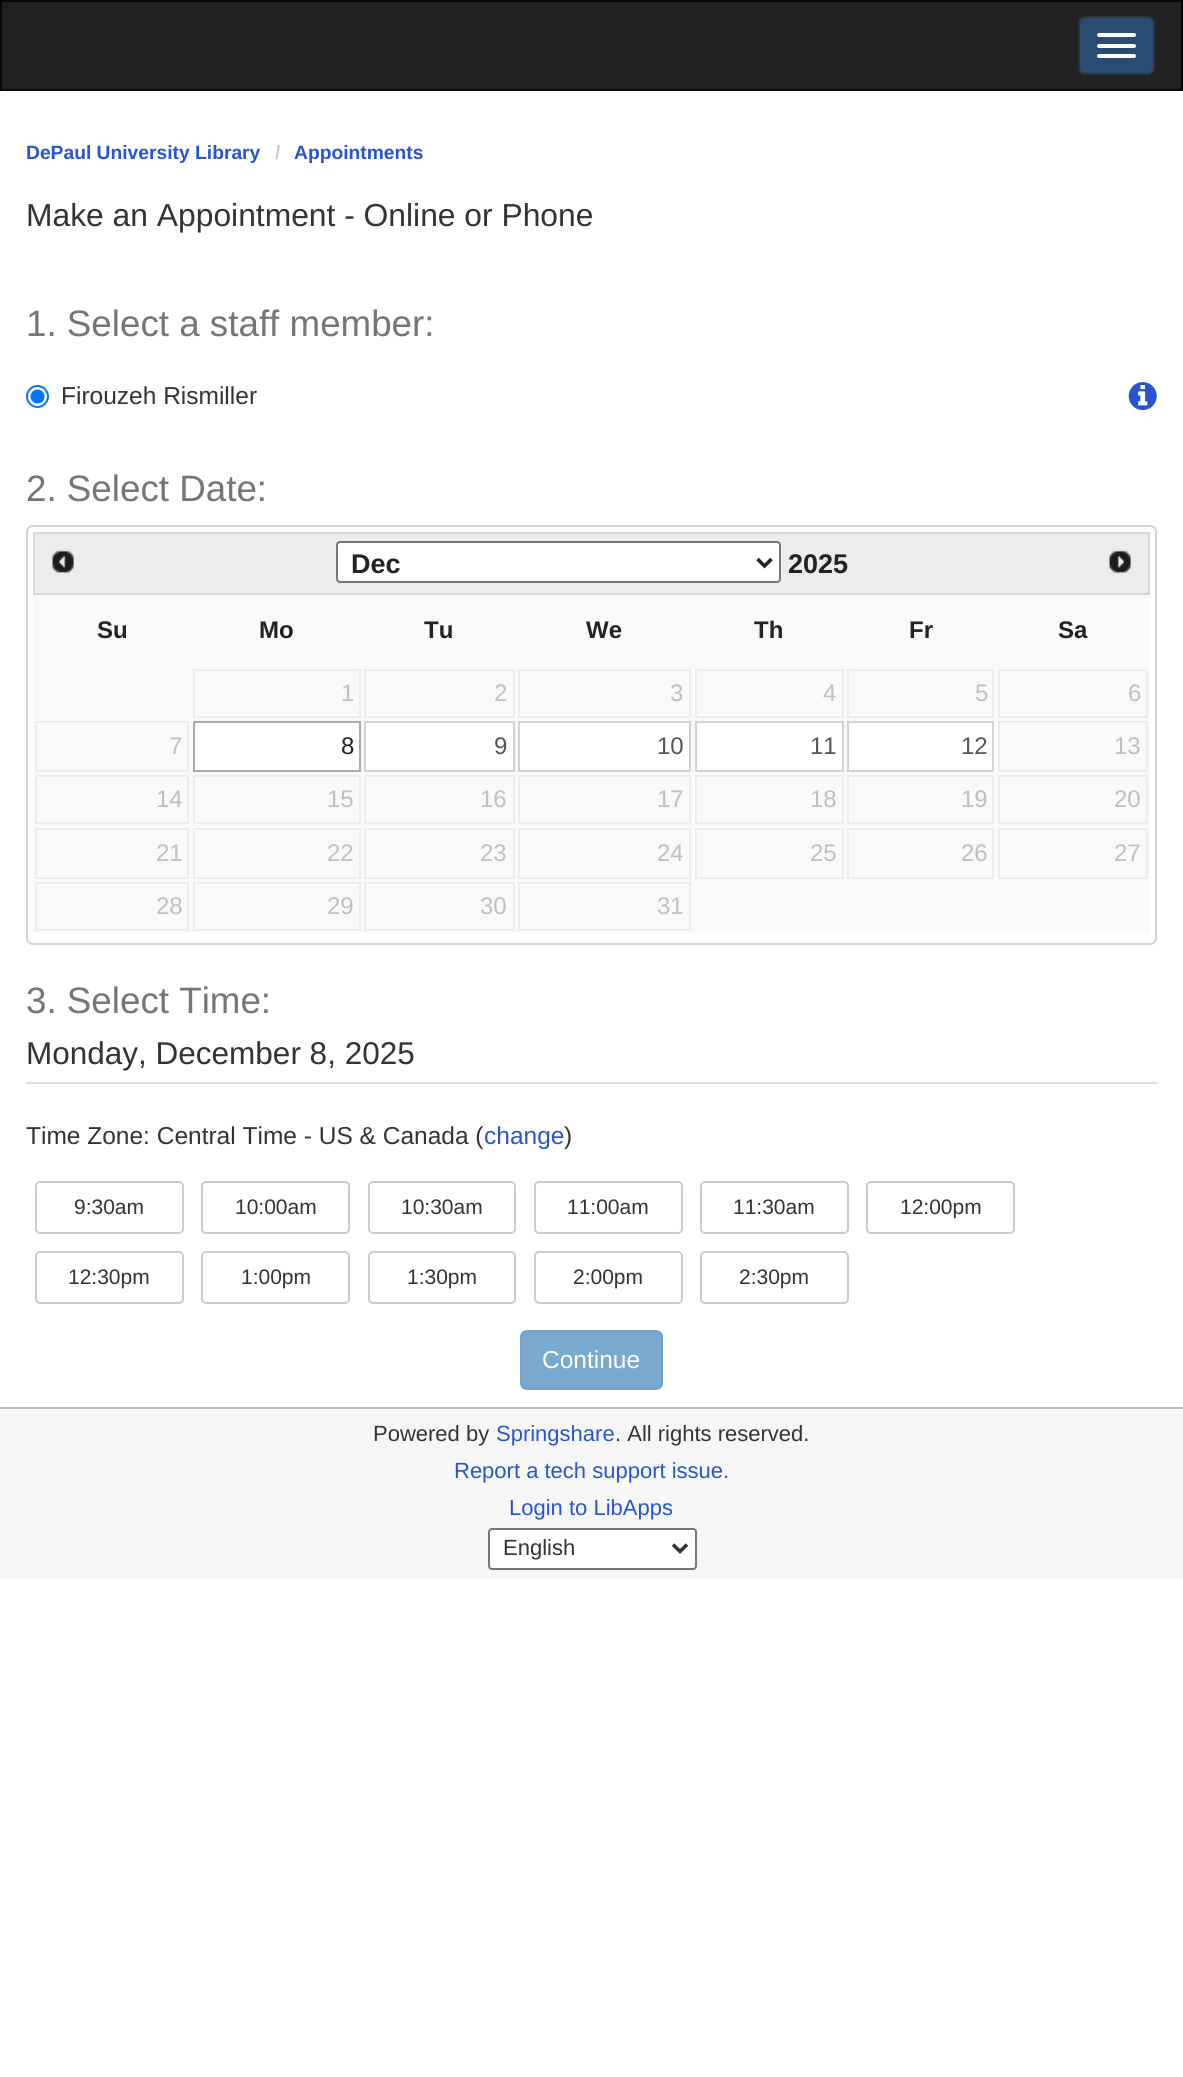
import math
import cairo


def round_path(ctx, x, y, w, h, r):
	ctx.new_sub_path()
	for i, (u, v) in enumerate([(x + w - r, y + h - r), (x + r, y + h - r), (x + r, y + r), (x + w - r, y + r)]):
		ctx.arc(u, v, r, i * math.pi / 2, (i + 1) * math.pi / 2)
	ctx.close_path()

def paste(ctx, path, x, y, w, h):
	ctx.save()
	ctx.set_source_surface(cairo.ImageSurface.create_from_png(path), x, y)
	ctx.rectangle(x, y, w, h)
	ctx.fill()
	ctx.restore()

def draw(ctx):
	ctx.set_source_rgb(1, 1, 1)
	ctx.paint()
	ctx.set_source_rgb(0.133, 0.133, 0.133)
	ctx.rectangle(1, 1, 1181, 89)
	ctx.fill_preserve()
	ctx.set_source_rgb(0.031, 0.031, 0.031)
	ctx.stroke()
	ctx.set_source_rgb(0.169, 0.298, 0.447)
	round_path(ctx, 1079, 17, 75, 57, 6)
	ctx.fill_preserve()
	ctx.set_source_rgb(0.2, 0.2, 0.2)
	ctx.stroke()
	ctx.set_source_rgb(1, 1, 1)
	round_path(ctx, 1097, 33, 39, 4, 2)
	ctx.fill()
	round_path(ctx, 1097, 44, 39, 4, 2)
	ctx.fill()
	round_path(ctx, 1097, 54, 39, 4, 2)
	ctx.fill()
	ctx.select_font_face('Liberation Sans', cairo.FONT_SLANT_NORMAL, cairo.FONT_WEIGHT_BOLD)
	ctx.set_font_size(19.25)
	ctx.set_source_rgb(0.161, 0.329, 0.82)
	ctx.move_to(26, 159)
	ctx.show_text('DePaul University Library')
	ctx.set_source_rgb(0.8, 0.8, 0.8)
	ctx.move_to(275, 159)
	ctx.show_text('/')
	ctx.set_source_rgb(0.161, 0.329, 0.82)
	ctx.move_to(294, 159)
	ctx.show_text('Appointments')
	ctx.select_font_face('Liberation Sans')
	ctx.set_font_size(31.8)
	ctx.set_source_rgb(0.2, 0.2, 0.2)
	ctx.move_to(26, 226)
	ctx.show_text('Make an Appointment - Online or Phone')
	ctx.set_font_size(36.75)
	ctx.set_source_rgb(0.459, 0.459, 0.459)
	ctx.move_to(26, 336)
	ctx.show_text('1. Select a staff member:')
	ctx.new_path()
	ctx.arc(37.5, 396.5, 10.5, 0, 2 * math.pi)
	ctx.set_source_rgb(0, 0.459, 1)
	ctx.stroke()
	ctx.arc(37.5, 396.5, 7, 0, 2 * math.pi)
	ctx.fill()
	ctx.set_font_size(24.5)
	ctx.set_source_rgb(0.2, 0.2, 0.2)
	ctx.move_to(61, 404)
	ctx.show_text('Firouzeh Rismiller')
	paste(ctx, 'media/1.png', 1128, 382, 29, 29)
	ctx.set_font_size(36.75)
	ctx.set_source_rgb(0.459, 0.459, 0.459)
	ctx.move_to(26, 501)
	ctx.show_text('2. Select Date:')
	round_path(ctx, 27, 526, 1129, 418, 6)
	ctx.set_source_rgb(0.827, 0.827, 0.827)
	ctx.stroke()
	ctx.set_source_rgb(0.922, 0.922, 0.922)
	ctx.rectangle(34, 533, 1115, 61)
	ctx.fill_preserve()
	ctx.set_source_rgb(0.847, 0.847, 0.847)
	ctx.stroke()
	paste(ctx, 'media/2.png', 52, 550, 22, 23)
	ctx.set_source_rgb(1, 1, 1)
	round_path(ctx, 337, 542, 443, 40, 3)
	ctx.fill_preserve()
	ctx.set_source_rgb(0.463, 0.463, 0.463)
	ctx.stroke()
	ctx.new_path()
	ctx.move_to(757.5, 559)
	ctx.line_to(764.5, 566)
	ctx.line_to(771.5, 559)
	ctx.set_source_rgb(0.133, 0.133, 0.133)
	ctx.set_line_width(3.5)
	ctx.stroke()
	ctx.select_font_face('Liberation Sans', cairo.FONT_SLANT_NORMAL, cairo.FONT_WEIGHT_BOLD)
	ctx.set_font_size(27)
	ctx.move_to(351, 573)
	ctx.show_text('Dec')
	ctx.move_to(788, 573)
	ctx.show_text('2025')
	paste(ctx, 'media/3.png', 1109, 550, 22, 23)
	ctx.set_source_rgb(0.973, 0.973, 0.973)
	ctx.rectangle(33, 595, 1117, 338)
	ctx.fill()
	ctx.set_font_size(24)
	ctx.set_source_rgb(0.133, 0.133, 0.133)
	for x, y, s in [
		(97, 638, 'Su'),
		(259, 638, 'Mo'),
		(424, 638, 'Tu'),
		(586, 638, 'We'),
		(754, 638, 'Th'),
		(909, 638, 'Fr'),
		(1058, 638, 'Sa'),
	]:
		ctx.move_to(x, y)
		ctx.show_text(s)
	ctx.rectangle(194, 670, 166, 47)
	ctx.set_source_rgb(0.922, 0.922, 0.922)
	ctx.set_line_width(2)
	ctx.stroke()
	ctx.select_font_face('Liberation Sans')
	ctx.set_source_rgb(0.749, 0.749, 0.749)
	ctx.move_to(341, 701)
	ctx.show_text('1')
	ctx.rectangle(365, 670, 149, 47)
	ctx.set_source_rgb(0.922, 0.922, 0.922)
	ctx.stroke()
	ctx.set_source_rgb(0.749, 0.749, 0.749)
	ctx.move_to(494, 701)
	ctx.show_text('2')
	ctx.rectangle(519, 670, 171, 47)
	ctx.set_source_rgb(0.922, 0.922, 0.922)
	ctx.stroke()
	ctx.set_source_rgb(0.749, 0.749, 0.749)
	ctx.move_to(670, 701)
	ctx.show_text('3')
	ctx.rectangle(696, 670, 147, 47)
	ctx.set_source_rgb(0.922, 0.922, 0.922)
	ctx.stroke()
	ctx.set_source_rgb(0.749, 0.749, 0.749)
	ctx.move_to(823, 701)
	ctx.show_text('4')
	ctx.rectangle(848, 670, 145, 47)
	ctx.set_source_rgb(0.922, 0.922, 0.922)
	ctx.stroke()
	ctx.set_source_rgb(0.749, 0.749, 0.749)
	ctx.move_to(975, 701)
	ctx.show_text('5')
	ctx.rectangle(999, 670, 148, 47)
	ctx.set_source_rgb(0.922, 0.922, 0.922)
	ctx.stroke()
	ctx.set_source_rgb(0.749, 0.749, 0.749)
	ctx.move_to(1128, 701)
	ctx.show_text('6')
	ctx.rectangle(36, 722, 152, 49)
	ctx.set_source_rgb(0.922, 0.922, 0.922)
	ctx.stroke()
	ctx.set_source_rgb(0.749, 0.749, 0.749)
	ctx.move_to(169, 754)
	ctx.show_text('7')
	ctx.set_source_rgb(1, 1, 1)
	ctx.rectangle(194, 722, 166, 49)
	ctx.fill_preserve()
	ctx.set_source_rgb(0.667, 0.667, 0.667)
	ctx.stroke()
	ctx.set_source_rgb(0.133, 0.133, 0.133)
	ctx.move_to(341, 754)
	ctx.show_text('8')
	ctx.set_source_rgb(1, 1, 1)
	ctx.rectangle(365, 722, 149, 49)
	ctx.fill_preserve()
	ctx.set_source_rgb(0.827, 0.827, 0.827)
	ctx.stroke()
	ctx.set_source_rgb(0.333, 0.333, 0.333)
	ctx.move_to(494, 754)
	ctx.show_text('9')
	ctx.set_source_rgb(1, 1, 1)
	ctx.rectangle(519, 722, 171, 49)
	ctx.fill_preserve()
	ctx.set_source_rgb(0.827, 0.827, 0.827)
	ctx.stroke()
	ctx.set_source_rgb(0.333, 0.333, 0.333)
	ctx.move_to(657, 754)
	ctx.show_text('10')
	ctx.set_source_rgb(1, 1, 1)
	ctx.rectangle(696, 722, 147, 49)
	ctx.fill_preserve()
	ctx.set_source_rgb(0.827, 0.827, 0.827)
	ctx.stroke()
	ctx.set_source_rgb(0.333, 0.333, 0.333)
	ctx.move_to(810, 754)
	ctx.show_text('11')
	ctx.set_source_rgb(1, 1, 1)
	ctx.rectangle(848, 722, 145, 49)
	ctx.fill_preserve()
	ctx.set_source_rgb(0.827, 0.827, 0.827)
	ctx.stroke()
	ctx.set_source_rgb(0.333, 0.333, 0.333)
	ctx.move_to(961, 754)
	ctx.show_text('12')
	ctx.rectangle(999, 722, 148, 49)
	ctx.set_source_rgb(0.922, 0.922, 0.922)
	ctx.stroke()
	ctx.set_source_rgb(0.749, 0.749, 0.749)
	ctx.move_to(1114, 754)
	ctx.show_text('13')
	ctx.rectangle(36, 776, 152, 47)
	ctx.set_source_rgb(0.922, 0.922, 0.922)
	ctx.stroke()
	ctx.set_source_rgb(0.749, 0.749, 0.749)
	ctx.move_to(156, 807)
	ctx.show_text('14')
	ctx.rectangle(194, 776, 166, 47)
	ctx.set_source_rgb(0.922, 0.922, 0.922)
	ctx.stroke()
	ctx.set_source_rgb(0.749, 0.749, 0.749)
	ctx.move_to(327, 807)
	ctx.show_text('15')
	ctx.rectangle(365, 776, 149, 47)
	ctx.set_source_rgb(0.922, 0.922, 0.922)
	ctx.stroke()
	ctx.set_source_rgb(0.749, 0.749, 0.749)
	ctx.move_to(480, 807)
	ctx.show_text('16')
	ctx.rectangle(519, 776, 171, 47)
	ctx.set_source_rgb(0.922, 0.922, 0.922)
	ctx.stroke()
	ctx.set_source_rgb(0.749, 0.749, 0.749)
	ctx.move_to(657, 807)
	ctx.show_text('17')
	ctx.rectangle(696, 776, 147, 47)
	ctx.set_source_rgb(0.922, 0.922, 0.922)
	ctx.stroke()
	ctx.set_source_rgb(0.749, 0.749, 0.749)
	ctx.move_to(810, 807)
	ctx.show_text('18')
	ctx.rectangle(848, 776, 145, 47)
	ctx.set_source_rgb(0.922, 0.922, 0.922)
	ctx.stroke()
	ctx.set_source_rgb(0.749, 0.749, 0.749)
	ctx.move_to(961, 807)
	ctx.show_text('19')
	ctx.rectangle(999, 776, 148, 47)
	ctx.set_source_rgb(0.922, 0.922, 0.922)
	ctx.stroke()
	ctx.set_source_rgb(0.749, 0.749, 0.749)
	ctx.move_to(1114, 807)
	ctx.show_text('20')
	ctx.rectangle(36, 829, 152, 49)
	ctx.set_source_rgb(0.922, 0.922, 0.922)
	ctx.stroke()
	ctx.set_source_rgb(0.749, 0.749, 0.749)
	ctx.move_to(156, 861)
	ctx.show_text('21')
	ctx.rectangle(194, 829, 166, 49)
	ctx.set_source_rgb(0.922, 0.922, 0.922)
	ctx.stroke()
	ctx.set_source_rgb(0.749, 0.749, 0.749)
	ctx.move_to(327, 861)
	ctx.show_text('22')
	ctx.rectangle(365, 829, 149, 49)
	ctx.set_source_rgb(0.922, 0.922, 0.922)
	ctx.stroke()
	ctx.set_source_rgb(0.749, 0.749, 0.749)
	ctx.move_to(480, 861)
	ctx.show_text('23')
	ctx.rectangle(519, 829, 171, 49)
	ctx.set_source_rgb(0.922, 0.922, 0.922)
	ctx.stroke()
	ctx.set_source_rgb(0.749, 0.749, 0.749)
	ctx.move_to(657, 861)
	ctx.show_text('24')
	ctx.rectangle(696, 829, 147, 49)
	ctx.set_source_rgb(0.922, 0.922, 0.922)
	ctx.stroke()
	ctx.set_source_rgb(0.749, 0.749, 0.749)
	ctx.move_to(810, 861)
	ctx.show_text('25')
	ctx.rectangle(848, 829, 145, 49)
	ctx.set_source_rgb(0.922, 0.922, 0.922)
	ctx.stroke()
	ctx.set_source_rgb(0.749, 0.749, 0.749)
	ctx.move_to(961, 861)
	ctx.show_text('26')
	ctx.rectangle(999, 829, 148, 49)
	ctx.set_source_rgb(0.922, 0.922, 0.922)
	ctx.stroke()
	ctx.set_source_rgb(0.749, 0.749, 0.749)
	ctx.move_to(1114, 861)
	ctx.show_text('27')
	ctx.rectangle(36, 883, 152, 47)
	ctx.set_source_rgb(0.922, 0.922, 0.922)
	ctx.stroke()
	ctx.set_source_rgb(0.749, 0.749, 0.749)
	ctx.move_to(156, 914)
	ctx.show_text('28')
	ctx.rectangle(194, 883, 166, 47)
	ctx.set_source_rgb(0.922, 0.922, 0.922)
	ctx.stroke()
	ctx.set_source_rgb(0.749, 0.749, 0.749)
	ctx.move_to(327, 914)
	ctx.show_text('29')
	ctx.rectangle(365, 883, 149, 47)
	ctx.set_source_rgb(0.922, 0.922, 0.922)
	ctx.stroke()
	ctx.set_source_rgb(0.749, 0.749, 0.749)
	ctx.move_to(480, 914)
	ctx.show_text('30')
	ctx.rectangle(519, 883, 171, 47)
	ctx.set_source_rgb(0.922, 0.922, 0.922)
	ctx.stroke()
	ctx.set_source_rgb(0.749, 0.749, 0.749)
	ctx.move_to(657, 914)
	ctx.show_text('31')
	ctx.set_font_size(36.75)
	ctx.set_source_rgb(0.459, 0.459, 0.459)
	ctx.move_to(26, 1013)
	ctx.show_text('3. Select Time:')
	ctx.set_source_rgb(0.867, 0.867, 0.867)
	ctx.rectangle(26, 1082, 1131, 2)
	ctx.fill()
	ctx.set_font_size(31.5)
	ctx.set_source_rgb(0.2, 0.2, 0.2)
	ctx.move_to(26, 1064)
	ctx.show_text('Monday, December 8, 2025')
	ctx.set_font_size(24.5)
	ctx.move_to(26, 1144)
	ctx.show_text('Time Zone: Central Time - US & Canada (')
	ctx.set_source_rgb(0.161, 0.329, 0.82)
	ctx.move_to(484, 1144)
	ctx.show_text('change')
	ctx.set_source_rgb(0.2, 0.2, 0.2)
	ctx.move_to(564, 1144)
	ctx.show_text(')')
	round_path(ctx, 36, 1182, 147, 51, 4)
	ctx.set_source_rgb(0.8, 0.8, 0.8)
	ctx.stroke()
	ctx.set_font_size(21)
	ctx.set_source_rgb(0.2, 0.2, 0.2)
	ctx.move_to(74, 1214)
	ctx.show_text('9:30am')
	round_path(ctx, 202, 1182, 147, 51, 4)
	ctx.set_source_rgb(0.8, 0.8, 0.8)
	ctx.stroke()
	ctx.set_source_rgb(0.2, 0.2, 0.2)
	ctx.move_to(235, 1214)
	ctx.show_text('10:00am')
	round_path(ctx, 369, 1182, 146, 51, 4)
	ctx.set_source_rgb(0.8, 0.8, 0.8)
	ctx.stroke()
	ctx.set_source_rgb(0.2, 0.2, 0.2)
	ctx.move_to(401, 1214)
	ctx.show_text('10:30am')
	round_path(ctx, 535, 1182, 147, 51, 4)
	ctx.set_source_rgb(0.8, 0.8, 0.8)
	ctx.stroke()
	ctx.set_source_rgb(0.2, 0.2, 0.2)
	ctx.move_to(567, 1214)
	ctx.show_text('11:00am')
	round_path(ctx, 701, 1182, 147, 51, 4)
	ctx.set_source_rgb(0.8, 0.8, 0.8)
	ctx.stroke()
	ctx.set_source_rgb(0.2, 0.2, 0.2)
	ctx.move_to(733, 1214)
	ctx.show_text('11:30am')
	round_path(ctx, 867, 1182, 147, 51, 4)
	ctx.set_source_rgb(0.8, 0.8, 0.8)
	ctx.stroke()
	ctx.set_source_rgb(0.2, 0.2, 0.2)
	ctx.move_to(900, 1214)
	ctx.show_text('12:00pm')
	round_path(ctx, 36, 1252, 147, 51, 4)
	ctx.set_source_rgb(0.8, 0.8, 0.8)
	ctx.stroke()
	ctx.set_source_rgb(0.2, 0.2, 0.2)
	ctx.move_to(68, 1284)
	ctx.show_text('12:30pm')
	round_path(ctx, 202, 1252, 147, 51, 4)
	ctx.set_source_rgb(0.8, 0.8, 0.8)
	ctx.stroke()
	ctx.set_source_rgb(0.2, 0.2, 0.2)
	ctx.move_to(241, 1284)
	ctx.show_text('1:00pm')
	round_path(ctx, 369, 1252, 146, 51, 4)
	ctx.set_source_rgb(0.8, 0.8, 0.8)
	ctx.stroke()
	ctx.set_source_rgb(0.2, 0.2, 0.2)
	ctx.move_to(407, 1284)
	ctx.show_text('1:30pm')
	round_path(ctx, 535, 1252, 147, 51, 4)
	ctx.set_source_rgb(0.8, 0.8, 0.8)
	ctx.stroke()
	ctx.set_source_rgb(0.2, 0.2, 0.2)
	ctx.move_to(573, 1284)
	ctx.show_text('2:00pm')
	round_path(ctx, 701, 1252, 147, 51, 4)
	ctx.set_source_rgb(0.8, 0.8, 0.8)
	ctx.stroke()
	ctx.set_source_rgb(0.2, 0.2, 0.2)
	ctx.move_to(739, 1284)
	ctx.show_text('2:30pm')
	ctx.set_source_rgb(0.478, 0.663, 0.816)
	round_path(ctx, 521, 1331, 141, 58, 6)
	ctx.fill_preserve()
	ctx.set_source_rgb(0.467, 0.627, 0.769)
	ctx.stroke()
	ctx.set_font_size(24.5)
	ctx.set_source_rgb(1, 1, 1)
	ctx.move_to(542, 1368)
	ctx.show_text('Continue')
	ctx.set_source_rgb(0.961, 0.961, 0.961)
	ctx.rectangle(0, 1409, 1183, 170)
	ctx.fill()
	ctx.set_source_rgb(0.733, 0.733, 0.733)
	ctx.rectangle(0, 1407, 1183, 2)
	ctx.fill()
	ctx.set_font_size(22)
	ctx.set_source_rgb(0.2, 0.2, 0.2)
	ctx.move_to(373, 1441)
	ctx.show_text('Powered by')
	ctx.set_source_rgb(0.161, 0.329, 0.82)
	ctx.move_to(496, 1441)
	ctx.show_text('Springshare')
	ctx.set_source_rgb(0.2, 0.2, 0.2)
	ctx.move_to(615, 1441)
	ctx.show_text('. All rights reserved.')
	ctx.set_source_rgb(0.161, 0.329, 0.82)
	ctx.move_to(454, 1478)
	ctx.show_text('Report a tech support issue.')
	ctx.move_to(509, 1515)
	ctx.show_text('Login to LibApps')
	ctx.set_source_rgb(1, 1, 1)
	round_path(ctx, 489, 1529, 207, 40, 3)
	ctx.fill_preserve()
	ctx.set_source_rgb(0.463, 0.463, 0.463)
	ctx.stroke()
	ctx.new_path()
	ctx.move_to(673, 1544.5)
	ctx.line_to(680, 1551.5)
	ctx.line_to(687, 1544.5)
	ctx.set_source_rgb(0.2, 0.2, 0.2)
	ctx.set_line_width(3.5)
	ctx.stroke()
	ctx.move_to(503, 1555)
	ctx.show_text('English')


surface = cairo.ImageSurface(cairo.FORMAT_RGB24, 1183, 2077)
ctx = cairo.Context(surface)
options = cairo.FontOptions()
options.set_hint_metrics(cairo.HINT_METRICS_OFF)
options.set_hint_style(cairo.HINT_STYLE_NONE)
ctx.set_font_options(options)
ctx.set_miter_limit(4)
draw(ctx)
surface.write_to_png('image.png')
